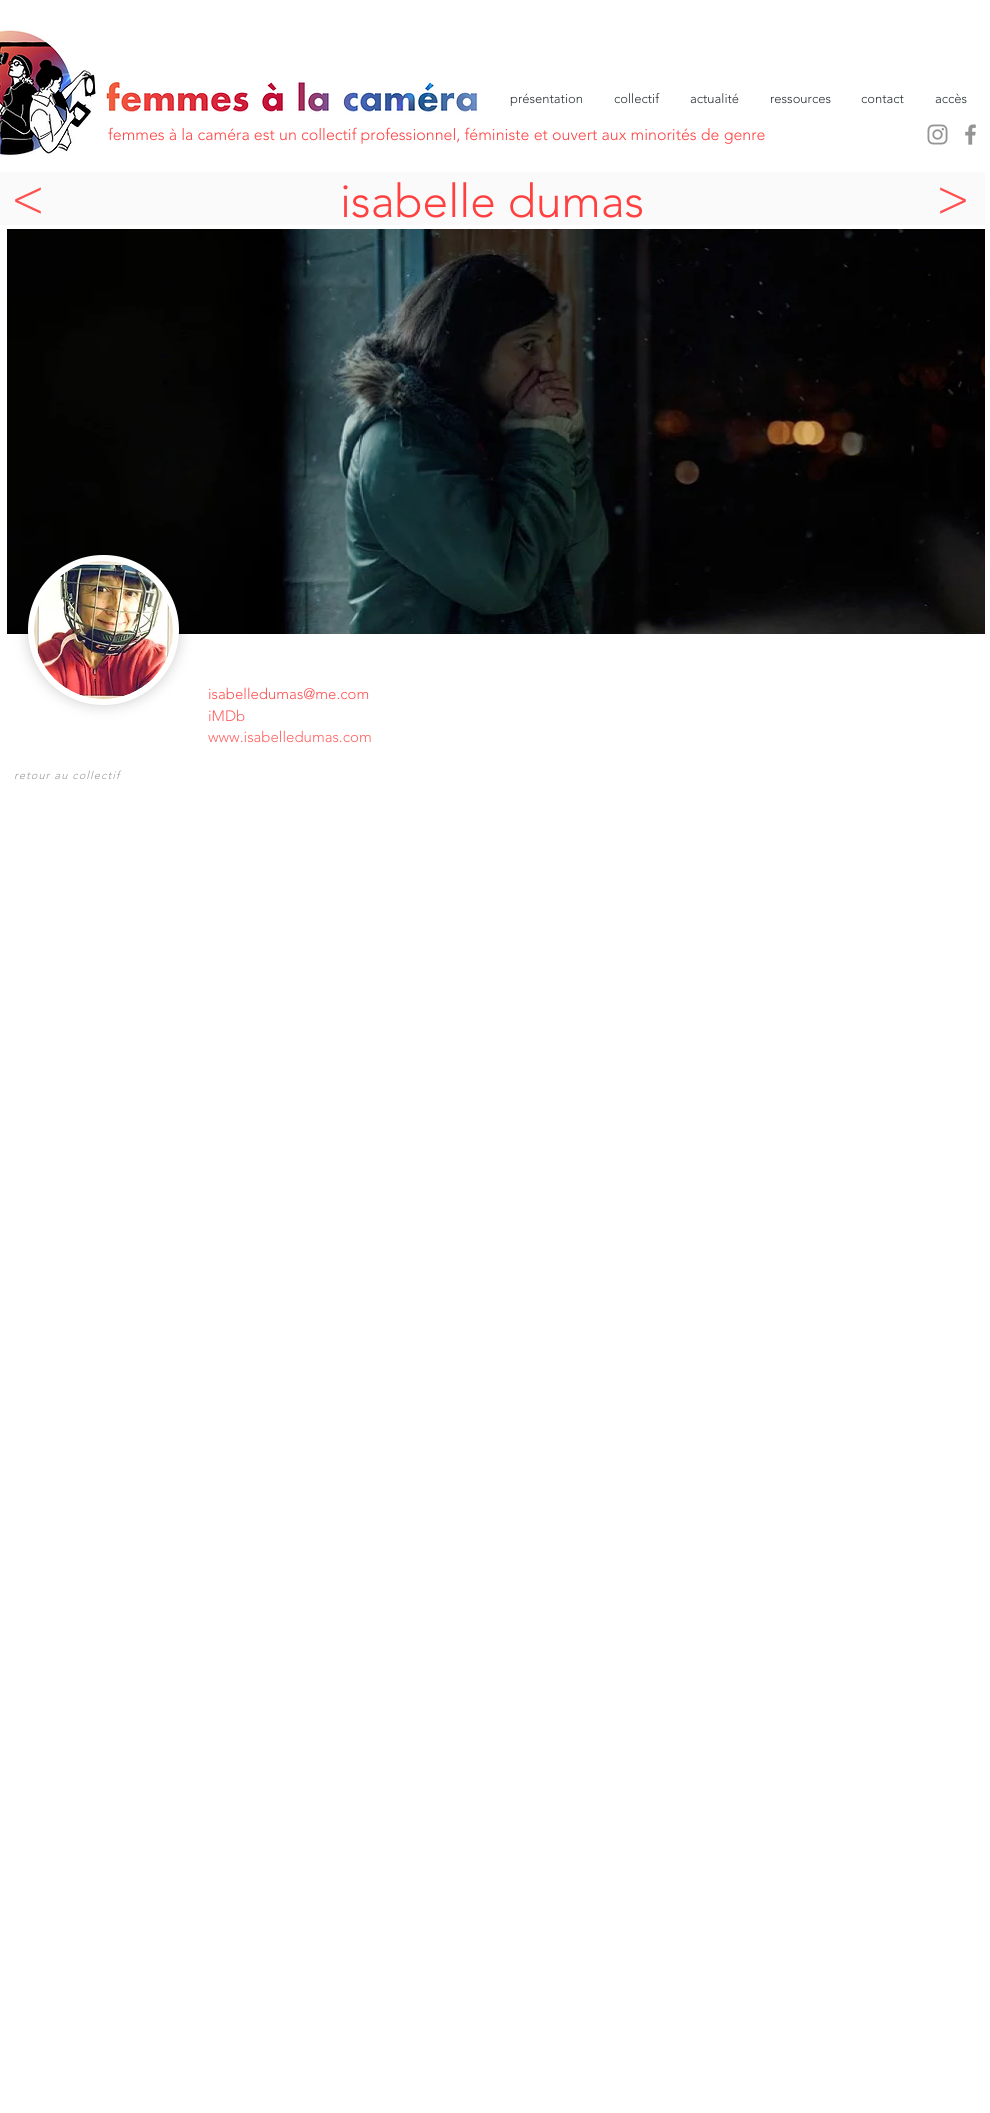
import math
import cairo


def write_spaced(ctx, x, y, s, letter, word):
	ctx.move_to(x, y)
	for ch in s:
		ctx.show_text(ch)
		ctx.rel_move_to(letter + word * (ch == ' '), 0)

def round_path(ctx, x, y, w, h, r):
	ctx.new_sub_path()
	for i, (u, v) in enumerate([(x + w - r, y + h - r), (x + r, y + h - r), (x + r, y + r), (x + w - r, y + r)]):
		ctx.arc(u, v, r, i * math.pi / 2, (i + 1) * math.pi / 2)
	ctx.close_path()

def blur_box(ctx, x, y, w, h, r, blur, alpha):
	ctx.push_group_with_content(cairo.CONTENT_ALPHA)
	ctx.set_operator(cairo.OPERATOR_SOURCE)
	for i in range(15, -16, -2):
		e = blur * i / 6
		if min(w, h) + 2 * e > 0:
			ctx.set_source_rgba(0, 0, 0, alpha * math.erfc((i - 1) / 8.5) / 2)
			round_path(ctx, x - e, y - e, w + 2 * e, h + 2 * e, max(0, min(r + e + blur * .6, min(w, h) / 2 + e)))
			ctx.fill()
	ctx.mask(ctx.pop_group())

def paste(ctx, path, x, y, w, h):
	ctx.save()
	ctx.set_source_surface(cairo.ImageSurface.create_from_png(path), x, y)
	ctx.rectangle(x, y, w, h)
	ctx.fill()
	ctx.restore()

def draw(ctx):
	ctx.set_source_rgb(1, 1, 1)
	ctx.paint()
	paste(ctx, 'media/1.png', 0, 30, 478, 127)
	ctx.select_font_face('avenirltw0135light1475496 Light')
	ctx.set_font_size(13)
	ctx.set_source_rgb(0.153, 0.184, 0.192)
	for x, y, s in [
		(510, 103, 'présentation'),
		(614, 103, 'collectif'),
		(690, 103, 'actualité'),
		(770, 103, 'ressources'),
		(861, 103, 'contact'),
		(935, 103, 'accès'),
	]:
		ctx.move_to(x, y)
		ctx.show_text(s)
	ctx.set_font_size(16)
	ctx.set_source_rgb(1, 0.251, 0.251)
	ctx.move_to(108, 140)
	ctx.show_text('femmes à la caméra est un collectif professionnel, féministe et ouvert aux minorités de genre')
	paste(ctx, 'media/2.png', 927, 124, 21, 21)
	paste(ctx, 'media/3.png', 965, 124, 11, 21)
	ctx.set_source_rgb(0.98, 0.98, 0.98)
	ctx.rectangle(0, 172, 985, 53)
	ctx.fill()
	ctx.set_font_size(51)
	ctx.set_source_rgb(1, 0.31, 0.31)
	write_spaced(ctx, 11, 216, '<', 5, 0)
	ctx.set_font_size(46)
	ctx.set_source_rgb(1, 0.251, 0.251)
	ctx.move_to(340, 217)
	ctx.show_text('isabelle dumas')
	ctx.set_font_size(51)
	ctx.set_source_rgb(1, 0.31, 0.31)
	write_spaced(ctx, 936, 216, '>', 5, 0)
	paste(ctx, 'media/4.png', 7, 229, 978, 405)
	ctx.set_source_rgb(0, 0, 0)
	blur_box(ctx, 28, 555, 151, 150, 75, 7, 0.2)
	ctx.set_source_rgb(1, 1, 1)
	round_path(ctx, 31, 558, 145, 144, 72)
	ctx.fill_preserve()
	ctx.set_line_width(6)
	ctx.stroke()
	paste(ctx, 'media/5.png', 34, 561, 139, 138)
	ctx.set_font_size(15)
	ctx.set_source_rgb(1, 0.31, 0.31)
	ctx.move_to(208, 699)
	ctx.show_text('isabelledumas@me.com')
	ctx.set_source_rgb(1, 0.38, 0.38)
	ctx.move_to(208, 721)
	ctx.show_text('iMDb')
	ctx.move_to(208, 742)
	ctx.show_text('www.isabelledumas.com')
	ctx.select_font_face('avenirltw0135light1475496 Light', cairo.FONT_SLANT_ITALIC)
	ctx.set_font_size(11)
	ctx.set_source_rgb(0.6, 0.6, 0.592)
	write_spaced(ctx, 14, 779, 'retour au collectif', 1.1, 0)


surface = cairo.ImageSurface(cairo.FORMAT_RGB24, 990, 2113)
ctx = cairo.Context(surface)
options = cairo.FontOptions()
options.set_hint_metrics(cairo.HINT_METRICS_OFF)
options.set_hint_style(cairo.HINT_STYLE_NONE)
ctx.set_font_options(options)
ctx.set_miter_limit(4)
draw(ctx)
surface.write_to_png('image.png')
